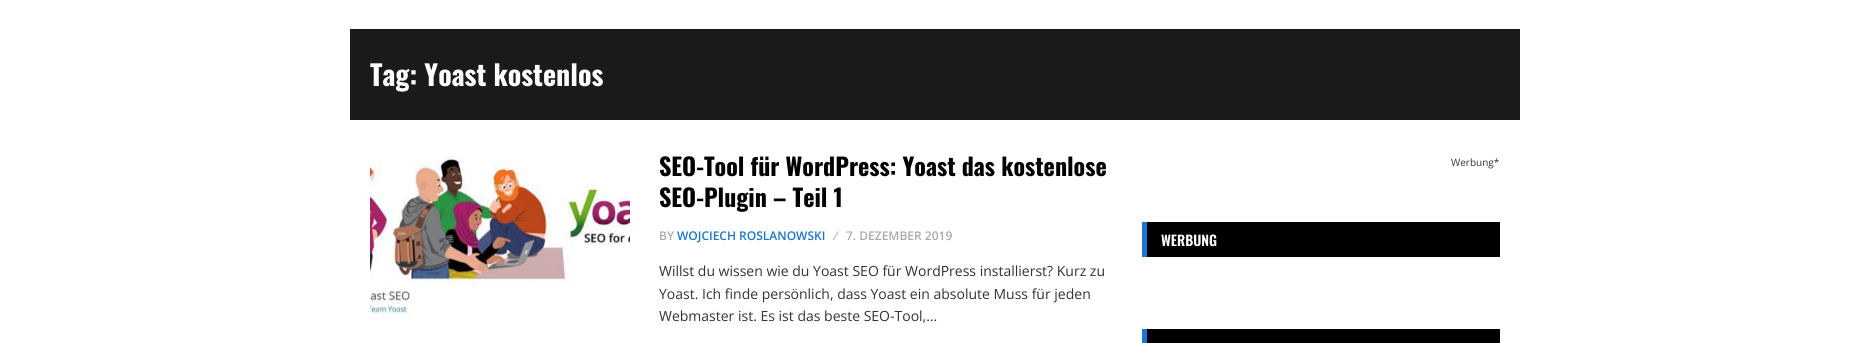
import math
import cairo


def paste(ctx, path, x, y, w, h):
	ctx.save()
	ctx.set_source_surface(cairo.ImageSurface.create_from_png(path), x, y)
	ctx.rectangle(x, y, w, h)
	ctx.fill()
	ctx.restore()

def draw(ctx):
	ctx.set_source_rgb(1, 1, 1)
	ctx.paint()
	ctx.set_source_rgb(0.102, 0.102, 0.102)
	ctx.rectangle(350, 29, 1170, 91)
	ctx.fill()
	ctx.select_font_face('Oswald', cairo.FONT_SLANT_NORMAL, cairo.FONT_WEIGHT_BOLD)
	ctx.set_font_size(28)
	ctx.set_source_rgb(1, 1, 1)
	ctx.move_to(370, 86)
	ctx.show_text('Tag: Yoast kostenlos')
	paste(ctx, 'media/1.png', 370, 156, 260, 163)
	ctx.set_font_size(24)
	ctx.set_source_rgb(0, 0, 0)
	ctx.move_to(659, 176)
	ctx.show_text('SEO-Tool für WordPress: Yoast das kostenlose')
	ctx.move_to(659, 207)
	ctx.show_text('SEO-Plugin – Teil 1')
	ctx.select_font_face('Open Sans SemiBold')
	ctx.set_font_size(12)
	ctx.set_source_rgb(0.667, 0.667, 0.667)
	ctx.move_to(659, 240)
	ctx.show_text('BY')
	ctx.set_source_rgb(0.098, 0.463, 0.824)
	ctx.move_to(677, 240)
	ctx.show_text('WOJCIECH ROSLANOWSKI')
	ctx.set_source_rgb(0.667, 0.667, 0.667)
	ctx.move_to(835, 240)
	ctx.show_text('⁄')
	ctx.move_to(846, 240)
	ctx.show_text('7. DEZEMBER 2019')
	ctx.select_font_face('Open Sans')
	ctx.set_font_size(14)
	ctx.set_source_rgb(0.2, 0.2, 0.2)
	for x, y, s in [
		(659, 276, 'Willst du wissen wie du Yoast SEO für WordPress installierst? Kurz zu'),
		(659, 299, 'Yoast. Ich finde persönlich, dass Yoast ein absolute Muss für jeden'),
		(659, 321, 'Webmaster ist. Es ist das beste SEO-Tool,…'),
	]:
		ctx.move_to(x, y)
		ctx.show_text(s)
	ctx.set_font_size(10)
	ctx.move_to(1451, 166)
	ctx.show_text('Werbung*')
	ctx.set_source_rgb(0, 0, 0)
	ctx.rectangle(1147, 222, 353, 35)
	ctx.fill()
	ctx.set_source_rgb(0.098, 0.463, 0.824)
	ctx.rectangle(1142, 222, 5, 35)
	ctx.fill()
	ctx.select_font_face('Oswald SemiBold')
	ctx.set_font_size(14)
	ctx.set_source_rgb(1, 1, 1)
	ctx.move_to(1161, 246)
	ctx.show_text('WERBUNG')
	ctx.set_source_rgb(0, 0, 0)
	ctx.rectangle(1147, 329, 353, 14)
	ctx.fill()
	ctx.set_source_rgb(0.098, 0.463, 0.824)
	ctx.rectangle(1142, 329, 5, 14)
	ctx.fill()


surface = cairo.ImageSurface(cairo.FORMAT_RGB24, 1869, 343)
ctx = cairo.Context(surface)
options = cairo.FontOptions()
options.set_hint_metrics(cairo.HINT_METRICS_OFF)
options.set_hint_style(cairo.HINT_STYLE_NONE)
ctx.set_font_options(options)
ctx.set_miter_limit(4)
draw(ctx)
surface.write_to_png('image.png')
